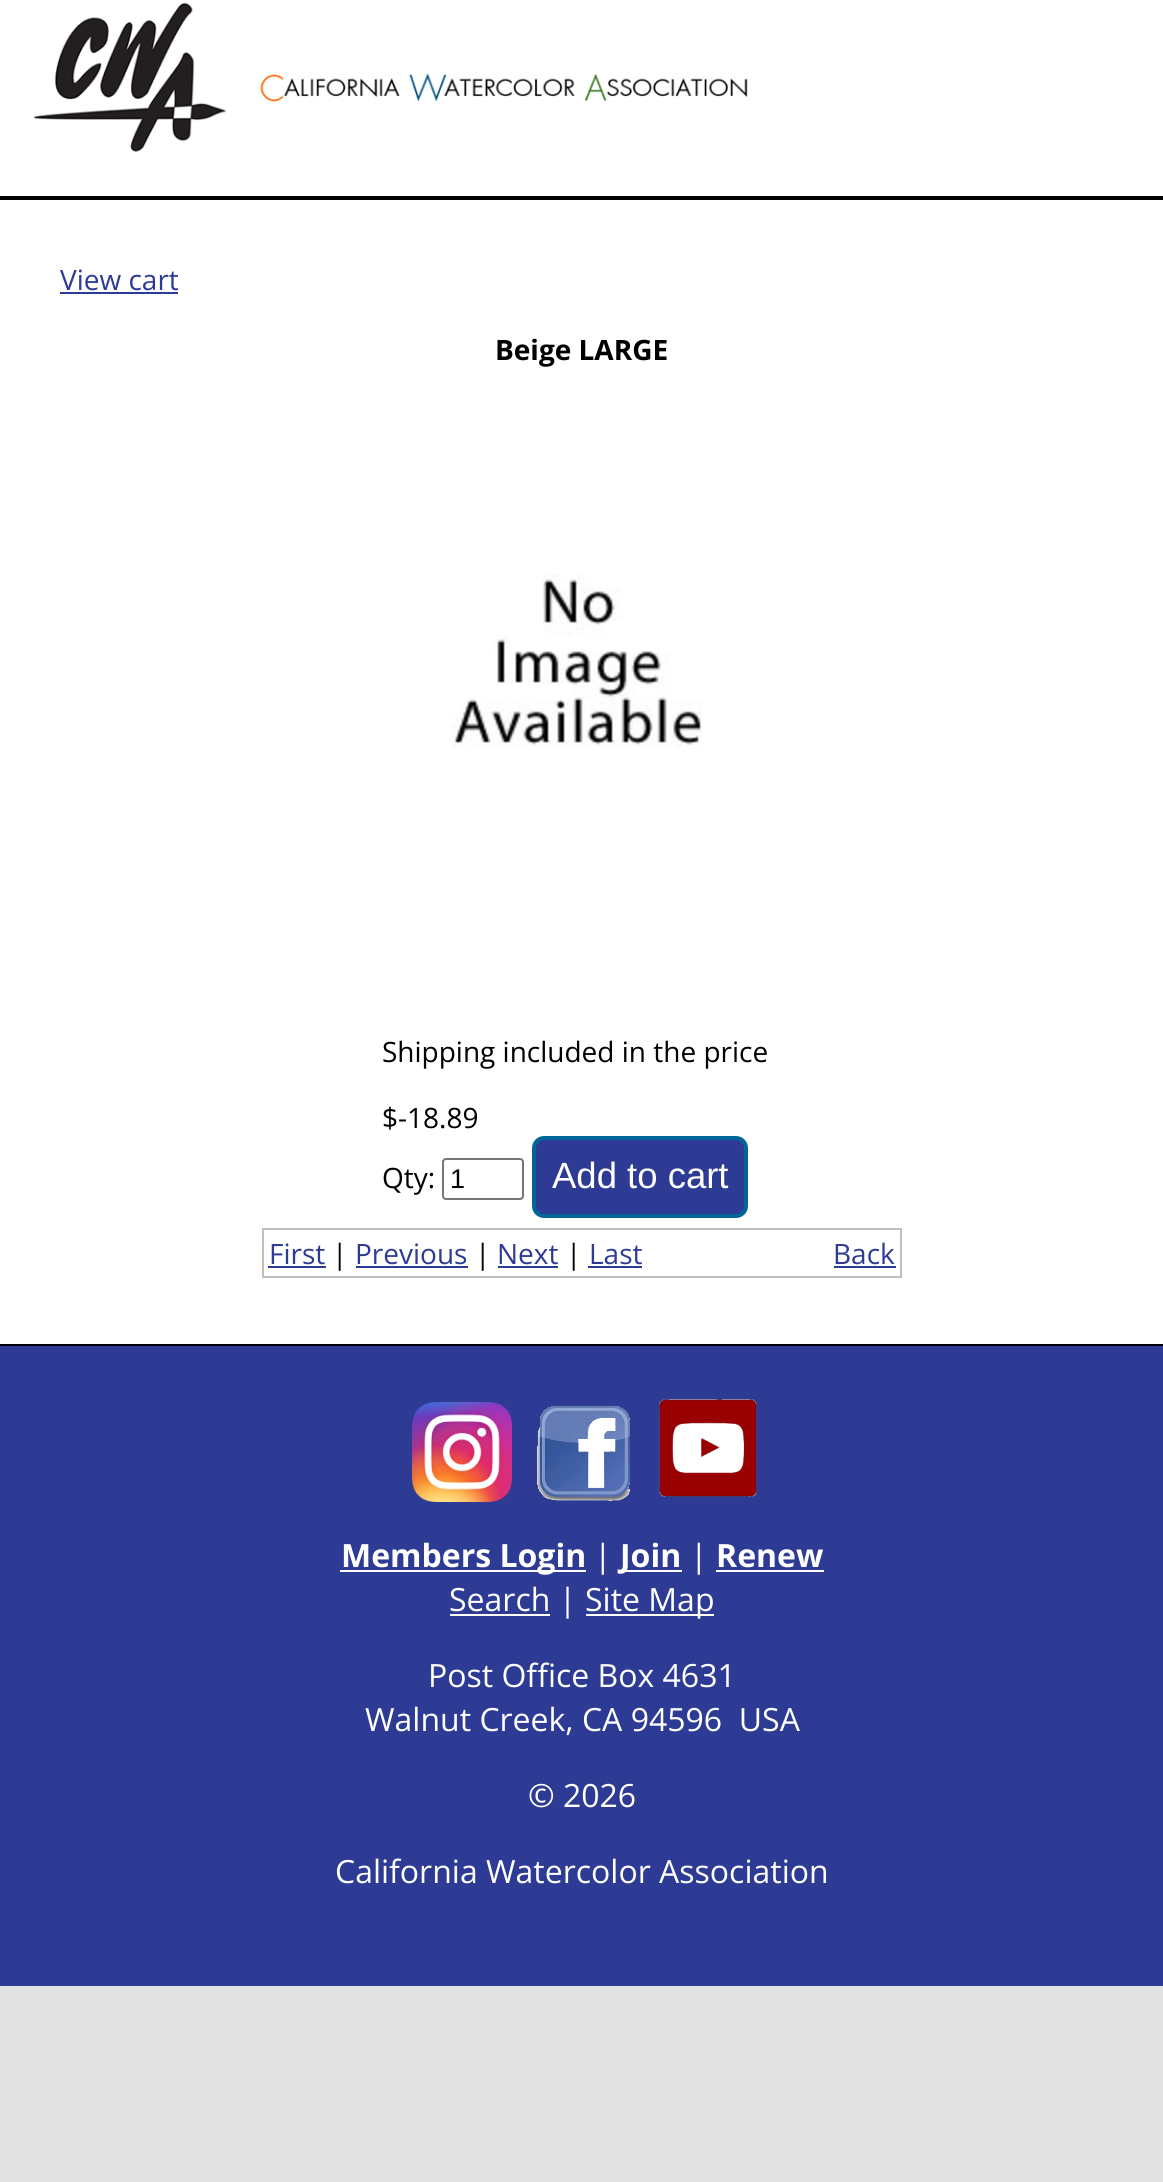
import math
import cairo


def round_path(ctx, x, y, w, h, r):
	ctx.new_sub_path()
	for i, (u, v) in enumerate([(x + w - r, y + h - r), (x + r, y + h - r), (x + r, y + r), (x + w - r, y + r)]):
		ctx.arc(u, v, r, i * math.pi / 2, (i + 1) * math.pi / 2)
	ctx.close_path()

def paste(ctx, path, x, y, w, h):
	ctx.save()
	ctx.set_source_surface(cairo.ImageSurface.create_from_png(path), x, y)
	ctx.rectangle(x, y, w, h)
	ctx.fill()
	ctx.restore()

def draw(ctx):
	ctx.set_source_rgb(0.886, 0.886, 0.886)
	ctx.paint()
	ctx.set_source_rgb(1, 1, 1)
	ctx.rectangle(0, 0, 1163, 196)
	ctx.fill()
	paste(ctx, 'media/1.png', 34, 3, 714, 149)
	ctx.set_source_rgb(0, 0, 0)
	ctx.rectangle(0, 196, 1163, 4)
	ctx.fill()
	ctx.set_source_rgb(1, 1, 1)
	ctx.rectangle(0, 200, 1163, 1144)
	ctx.fill()
	ctx.select_font_face('Open Sans')
	ctx.set_font_size(28)
	ctx.set_source_rgb(0.176, 0.231, 0.584)
	ctx.move_to(60, 290)
	ctx.show_text('View cart')
	ctx.rectangle(60, 292, 118, 2)
	ctx.fill()
	ctx.select_font_face('Open Sans', cairo.FONT_SLANT_NORMAL, cairo.FONT_WEIGHT_BOLD)
	ctx.set_source_rgb(0, 0, 0)
	ctx.move_to(495, 360)
	ctx.show_text('Beige LARGE')
	paste(ctx, 'media/2.png', 450, 574, 252, 174)
	ctx.select_font_face('Open Sans')
	for x, y, s in [
		(382, 1062, 'Shipping included in the price'),
		(382, 1128, '$-18.89'),
		(382, 1188, 'Qty:'),
	]:
		ctx.move_to(x, y)
		ctx.show_text(s)
	round_path(ctx, 443, 1159, 80, 40, 3)
	ctx.set_source_rgb(0.463, 0.463, 0.463)
	ctx.stroke()
	ctx.select_font_face('Liberation Sans')
	ctx.set_font_size(27)
	ctx.set_source_rgb(0, 0, 0)
	ctx.move_to(450, 1188)
	ctx.show_text('1')
	ctx.set_source_rgb(0.176, 0.231, 0.584)
	round_path(ctx, 534, 1138, 212, 78, 10)
	ctx.fill_preserve()
	ctx.set_source_rgb(0, 0.4, 0.6)
	ctx.set_line_width(4)
	ctx.stroke()
	ctx.set_font_size(36.5)
	ctx.set_source_rgb(1, 1, 1)
	ctx.move_to(552, 1188)
	ctx.show_text('Add to cart')
	ctx.rectangle(263, 1229, 638, 48)
	ctx.set_source_rgb(0.753, 0.753, 0.753)
	ctx.set_line_width(2)
	ctx.stroke()
	ctx.select_font_face('Open Sans')
	ctx.set_font_size(28)
	ctx.set_source_rgb(0.176, 0.231, 0.584)
	ctx.move_to(269, 1264)
	ctx.show_text('First')
	ctx.rectangle(268, 1266, 58, 2)
	ctx.fill()
	ctx.set_source_rgb(0, 0, 0)
	ctx.move_to(332, 1264)
	ctx.show_text('|')
	ctx.set_source_rgb(0.176, 0.231, 0.584)
	ctx.move_to(355, 1264)
	ctx.show_text('Previous')
	ctx.rectangle(356, 1266, 112, 2)
	ctx.fill()
	ctx.set_source_rgb(0, 0, 0)
	ctx.move_to(475, 1264)
	ctx.show_text('|')
	ctx.set_source_rgb(0.176, 0.231, 0.584)
	ctx.move_to(497, 1264)
	ctx.show_text('Next')
	ctx.rectangle(498, 1266, 60, 2)
	ctx.fill()
	ctx.set_source_rgb(0, 0, 0)
	ctx.move_to(566, 1264)
	ctx.show_text('|')
	ctx.set_source_rgb(0.176, 0.231, 0.584)
	ctx.move_to(589, 1264)
	ctx.show_text('Last')
	ctx.rectangle(588, 1266, 54, 2)
	ctx.fill()
	ctx.move_to(833, 1264)
	ctx.show_text('Back')
	ctx.rectangle(834, 1266, 62, 2)
	ctx.rectangle(0, 1346, 1163, 640)
	ctx.fill()
	ctx.set_source_rgb(0, 0, 0)
	ctx.rectangle(0, 1344, 1163, 2)
	ctx.fill()
	paste(ctx, 'media/3.png', 412, 1402, 100, 100)
	paste(ctx, 'media/4.png', 537, 1405, 93, 96)
	paste(ctx, 'media/5.png', 659, 1399, 98, 98)
	ctx.set_source_rgb(1, 1, 1)
	ctx.rectangle(340, 1570, 246, 2)
	ctx.fill()
	ctx.select_font_face('Open Sans', cairo.FONT_SLANT_NORMAL, cairo.FONT_WEIGHT_BOLD)
	ctx.set_font_size(32)
	ctx.move_to(341, 1567)
	ctx.show_text('Members Login')
	ctx.select_font_face('Open Sans')
	ctx.move_to(594, 1567)
	ctx.show_text('|')
	ctx.rectangle(620, 1570, 62, 2)
	ctx.fill()
	ctx.select_font_face('Open Sans', cairo.FONT_SLANT_NORMAL, cairo.FONT_WEIGHT_BOLD)
	ctx.move_to(620, 1567)
	ctx.show_text('Join')
	ctx.select_font_face('Open Sans')
	ctx.move_to(690, 1567)
	ctx.show_text('|')
	ctx.select_font_face('Open Sans', cairo.FONT_SLANT_NORMAL, cairo.FONT_WEIGHT_BOLD)
	ctx.move_to(716, 1567)
	ctx.show_text('Renew')
	ctx.rectangle(716, 1570, 108, 2)
	ctx.fill()
	ctx.rectangle(450, 1614, 100, 2)
	ctx.fill()
	ctx.select_font_face('Open Sans')
	ctx.move_to(449, 1611)
	ctx.show_text('Search |')
	ctx.rectangle(586, 1614, 128, 2)
	ctx.fill()
	for x, y, s in [
		(585, 1611, 'Site Map'),
		(428, 1687, 'Post Office Box 4631'),
		(365, 1731, 'Walnut Creek, CA 94596  USA'),
		(528, 1807, '© 2026'),
		(335, 1883, 'California Watercolor Association'),
	]:
		ctx.move_to(x, y)
		ctx.show_text(s)


surface = cairo.ImageSurface(cairo.FORMAT_RGB24, 1163, 2182)
ctx = cairo.Context(surface)
options = cairo.FontOptions()
options.set_hint_metrics(cairo.HINT_METRICS_OFF)
options.set_hint_style(cairo.HINT_STYLE_NONE)
ctx.set_font_options(options)
ctx.set_miter_limit(4)
draw(ctx)
surface.write_to_png('image.png')
